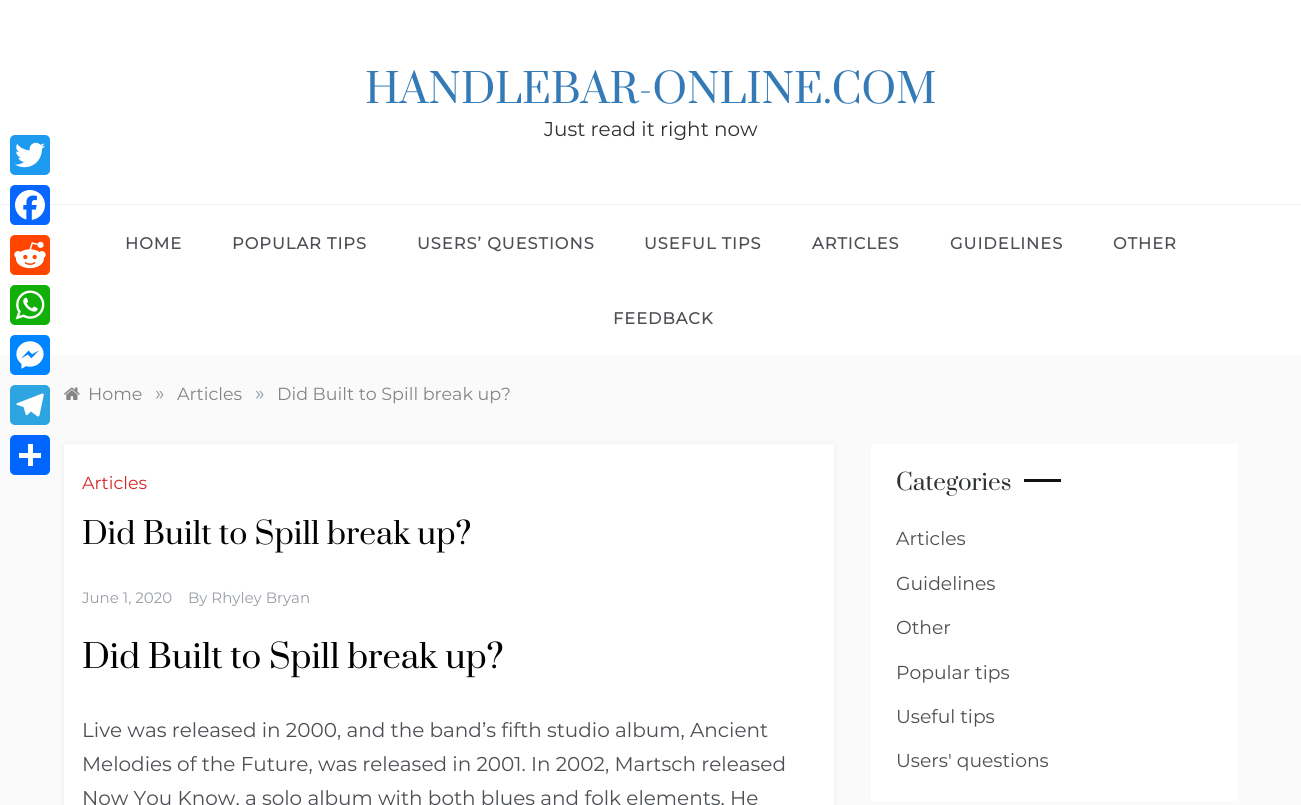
import math
import cairo


def write_spaced(ctx, x, y, s, letter, word):
	ctx.move_to(x, y)
	for ch in s:
		ctx.show_text(ch)
		ctx.rel_move_to(letter + word * (ch == ' '), 0)

def round_path(ctx, x, y, w, h, r):
	ctx.new_sub_path()
	for i, (u, v) in enumerate([(x + w - r, y + h - r), (x + r, y + h - r), (x + r, y + r), (x + w - r, y + r)]):
		ctx.arc(u, v, r, i * math.pi / 2, (i + 1) * math.pi / 2)
	ctx.close_path()

def blur_box(ctx, x, y, w, h, r, blur, alpha):
	ctx.push_group_with_content(cairo.CONTENT_ALPHA)
	ctx.set_operator(cairo.OPERATOR_SOURCE)
	for i in range(15, -16, -2):
		e = blur * i / 6
		if min(w, h) + 2 * e > 0:
			ctx.set_source_rgba(0, 0, 0, alpha * math.erfc((i - 1) / 8.5) / 2)
			round_path(ctx, x - e, y - e, w + 2 * e, h + 2 * e, max(0, min(r + e + blur * .6, min(w, h) / 2 + e)))
			ctx.fill()
	ctx.mask(ctx.pop_group())

def paste(ctx, path, x, y, w, h):
	ctx.save()
	ctx.set_source_surface(cairo.ImageSurface.create_from_png(path), x, y)
	ctx.rectangle(x, y, w, h)
	ctx.fill()
	ctx.restore()

def draw(ctx):
	ctx.set_source_rgb(0.98, 0.98, 0.98)
	ctx.paint()
	ctx.set_source_rgb(1, 1, 1)
	ctx.rectangle(0, 0, 1301, 355)
	ctx.fill()
	ctx.set_source_rgb(0.114, 0.608, 0.941)
	round_path(ctx, 10, 135, 40, 40, 5)
	ctx.fill()
	paste(ctx, 'media/1.png', 15, 142, 30, 26)
	ctx.set_source_rgb(0.949, 0.949, 0.949)
	ctx.rectangle(0, 204, 1301, 1)
	ctx.fill()
	ctx.set_source_rgb(0.031, 0.4, 1)
	round_path(ctx, 10, 185, 40, 40, 5)
	ctx.fill()
	paste(ctx, 'media/2.png', 15, 190, 30, 30)
	ctx.set_source_rgb(1, 0.271, 0)
	round_path(ctx, 10, 235, 40, 40, 5)
	ctx.fill()
	paste(ctx, 'media/3.png', 14, 241, 32, 28)
	ctx.set_source_rgb(0.071, 0.686, 0.039)
	round_path(ctx, 10, 285, 40, 40, 5)
	ctx.fill()
	paste(ctx, 'media/4.png', 15, 290, 30, 30)
	ctx.set_source_rgb(0, 0.518, 1)
	round_path(ctx, 10, 335, 40, 40, 5)
	ctx.fill()
	paste(ctx, 'media/5.png', 16, 341, 28, 28)
	ctx.set_source_rgb(0.173, 0.647, 0.878)
	round_path(ctx, 10, 385, 40, 40, 5)
	ctx.fill()
	paste(ctx, 'media/6.png', 16, 393, 28, 24)
	ctx.set_source_rgb(0.004, 0.4, 1)
	round_path(ctx, 10, 435, 40, 40, 5)
	ctx.fill()
	ctx.set_source_rgb(1, 1, 1)
	ctx.rectangle(28, 444, 5, 22)
	ctx.fill()
	ctx.rectangle(19, 453, 22, 5)
	ctx.fill()
	ctx.select_font_face('Prata')
	ctx.set_font_size(40)
	ctx.set_source_rgb(0.2, 0.478, 0.718)
	ctx.move_to(365, 103)
	ctx.show_text('HANDLEBAR-ONLINE.COM')
	ctx.select_font_face('Montserrat Thin')
	ctx.set_font_size(20)
	ctx.set_source_rgb(0.184, 0.196, 0.208)
	ctx.move_to(544, 136)
	ctx.show_text('Just read it right now')
	ctx.select_font_face('Montserrat', cairo.FONT_SLANT_NORMAL, cairo.FONT_WEIGHT_BOLD)
	ctx.set_font_size(16.25)
	ctx.set_source_rgb(0.298, 0.31, 0.325)
	for x, y, s in [
		(125, 249, 'HOME'),
		(232, 249, 'POPULAR TIPS'),
		(417, 249, 'USERS’ QUESTIONS'),
		(644, 249, 'USEFUL TIPS'),
		(812, 249, 'ARTICLES'),
		(950, 249, 'GUIDELINES'),
		(1113, 249, 'OTHER'),
		(613, 324, 'FEEDBACK'),
	]:
		write_spaced(ctx, x, y, s, 1, 0)
	paste(ctx, 'media/7.png', 64, 387, 16, 13)
	ctx.select_font_face('Montserrat Thin')
	ctx.set_font_size(17.5)
	ctx.set_source_rgb(0.522, 0.522, 0.522)
	ctx.move_to(88, 400)
	ctx.show_text('Home')
	ctx.set_font_size(20)
	ctx.set_source_rgb(0.553, 0.592, 0.631)
	ctx.move_to(155, 400)
	ctx.show_text('»')
	ctx.set_font_size(17.5)
	ctx.set_source_rgb(0.522, 0.522, 0.522)
	ctx.move_to(177, 400)
	ctx.show_text('Articles')
	ctx.set_font_size(20)
	ctx.set_source_rgb(0.553, 0.592, 0.631)
	ctx.move_to(255, 400)
	ctx.show_text('»')
	ctx.set_font_size(17.5)
	ctx.set_source_rgb(0.522, 0.522, 0.522)
	ctx.move_to(277, 400)
	ctx.show_text('Did Built to Spill break up?')
	ctx.set_source_rgb(0, 0, 0.004)
	blur_box(ctx, 64, 445, 770, 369, 0, 3, 0.05)
	ctx.set_source_rgb(1, 1, 1)
	ctx.rectangle(64, 444, 770, 361)
	ctx.fill()
	ctx.set_source_rgb(0.831, 0.161, 0.161)
	ctx.move_to(82, 489)
	ctx.show_text('Articles')
	ctx.select_font_face('Prata')
	ctx.set_font_size(30)
	ctx.set_source_rgb(0, 0, 0)
	ctx.move_to(82, 544)
	ctx.show_text('Did Built to Spill break up?')
	ctx.select_font_face('Montserrat Thin')
	ctx.set_font_size(15)
	ctx.set_source_rgb(0.596, 0.62, 0.651)
	ctx.move_to(82, 603)
	ctx.show_text('June 1, 2020')
	ctx.move_to(188, 603)
	ctx.show_text('By Rhyley Bryan')
	ctx.select_font_face('Prata')
	ctx.set_font_size(32.5)
	ctx.set_source_rgb(0, 0, 0)
	ctx.move_to(82, 668)
	ctx.show_text('Did Built to Spill break up?')
	ctx.select_font_face('Montserrat Thin')
	ctx.set_font_size(20)
	ctx.set_source_rgb(0.298, 0.31, 0.325)
	for x, y, s in [
		(82, 737, 'Live was released in 2000, and the band’s fifth studio album, Ancient'),
		(82, 771, 'Melodies of the Future, was released in 2001. In 2002, Martsch released'),
		(82, 805, 'Now You Know, a solo album with both blues and folk elements. He'),
	]:
		ctx.move_to(x, y)
		ctx.show_text(s)
	ctx.set_source_rgb(1, 1, 1)
	ctx.rectangle(871, 444, 367, 357)
	ctx.fill()
	ctx.select_font_face('Prata')
	ctx.set_font_size(22.5)
	ctx.set_source_rgb(0.184, 0.196, 0.208)
	ctx.move_to(896, 490)
	ctx.show_text('Categories')
	ctx.set_source_rgb(0.067, 0.067, 0.067)
	ctx.rectangle(1024, 479, 37, 3)
	ctx.fill()
	ctx.select_font_face('Montserrat Thin')
	ctx.set_font_size(18.75)
	ctx.set_source_rgb(0.298, 0.31, 0.325)
	for x, y, s in [
		(896, 545, 'Articles'),
		(896, 590, 'Guidelines'),
		(896, 634, 'Other'),
		(896, 679, 'Popular tips'),
		(896, 723, 'Useful tips'),
		(896, 767, 'Users\' questions'),
	]:
		ctx.move_to(x, y)
		ctx.show_text(s)


surface = cairo.ImageSurface(cairo.FORMAT_RGB24, 1301, 805)
ctx = cairo.Context(surface)
options = cairo.FontOptions()
options.set_hint_metrics(cairo.HINT_METRICS_OFF)
options.set_hint_style(cairo.HINT_STYLE_NONE)
ctx.set_font_options(options)
ctx.set_miter_limit(4)
draw(ctx)
surface.write_to_png('image.png')
